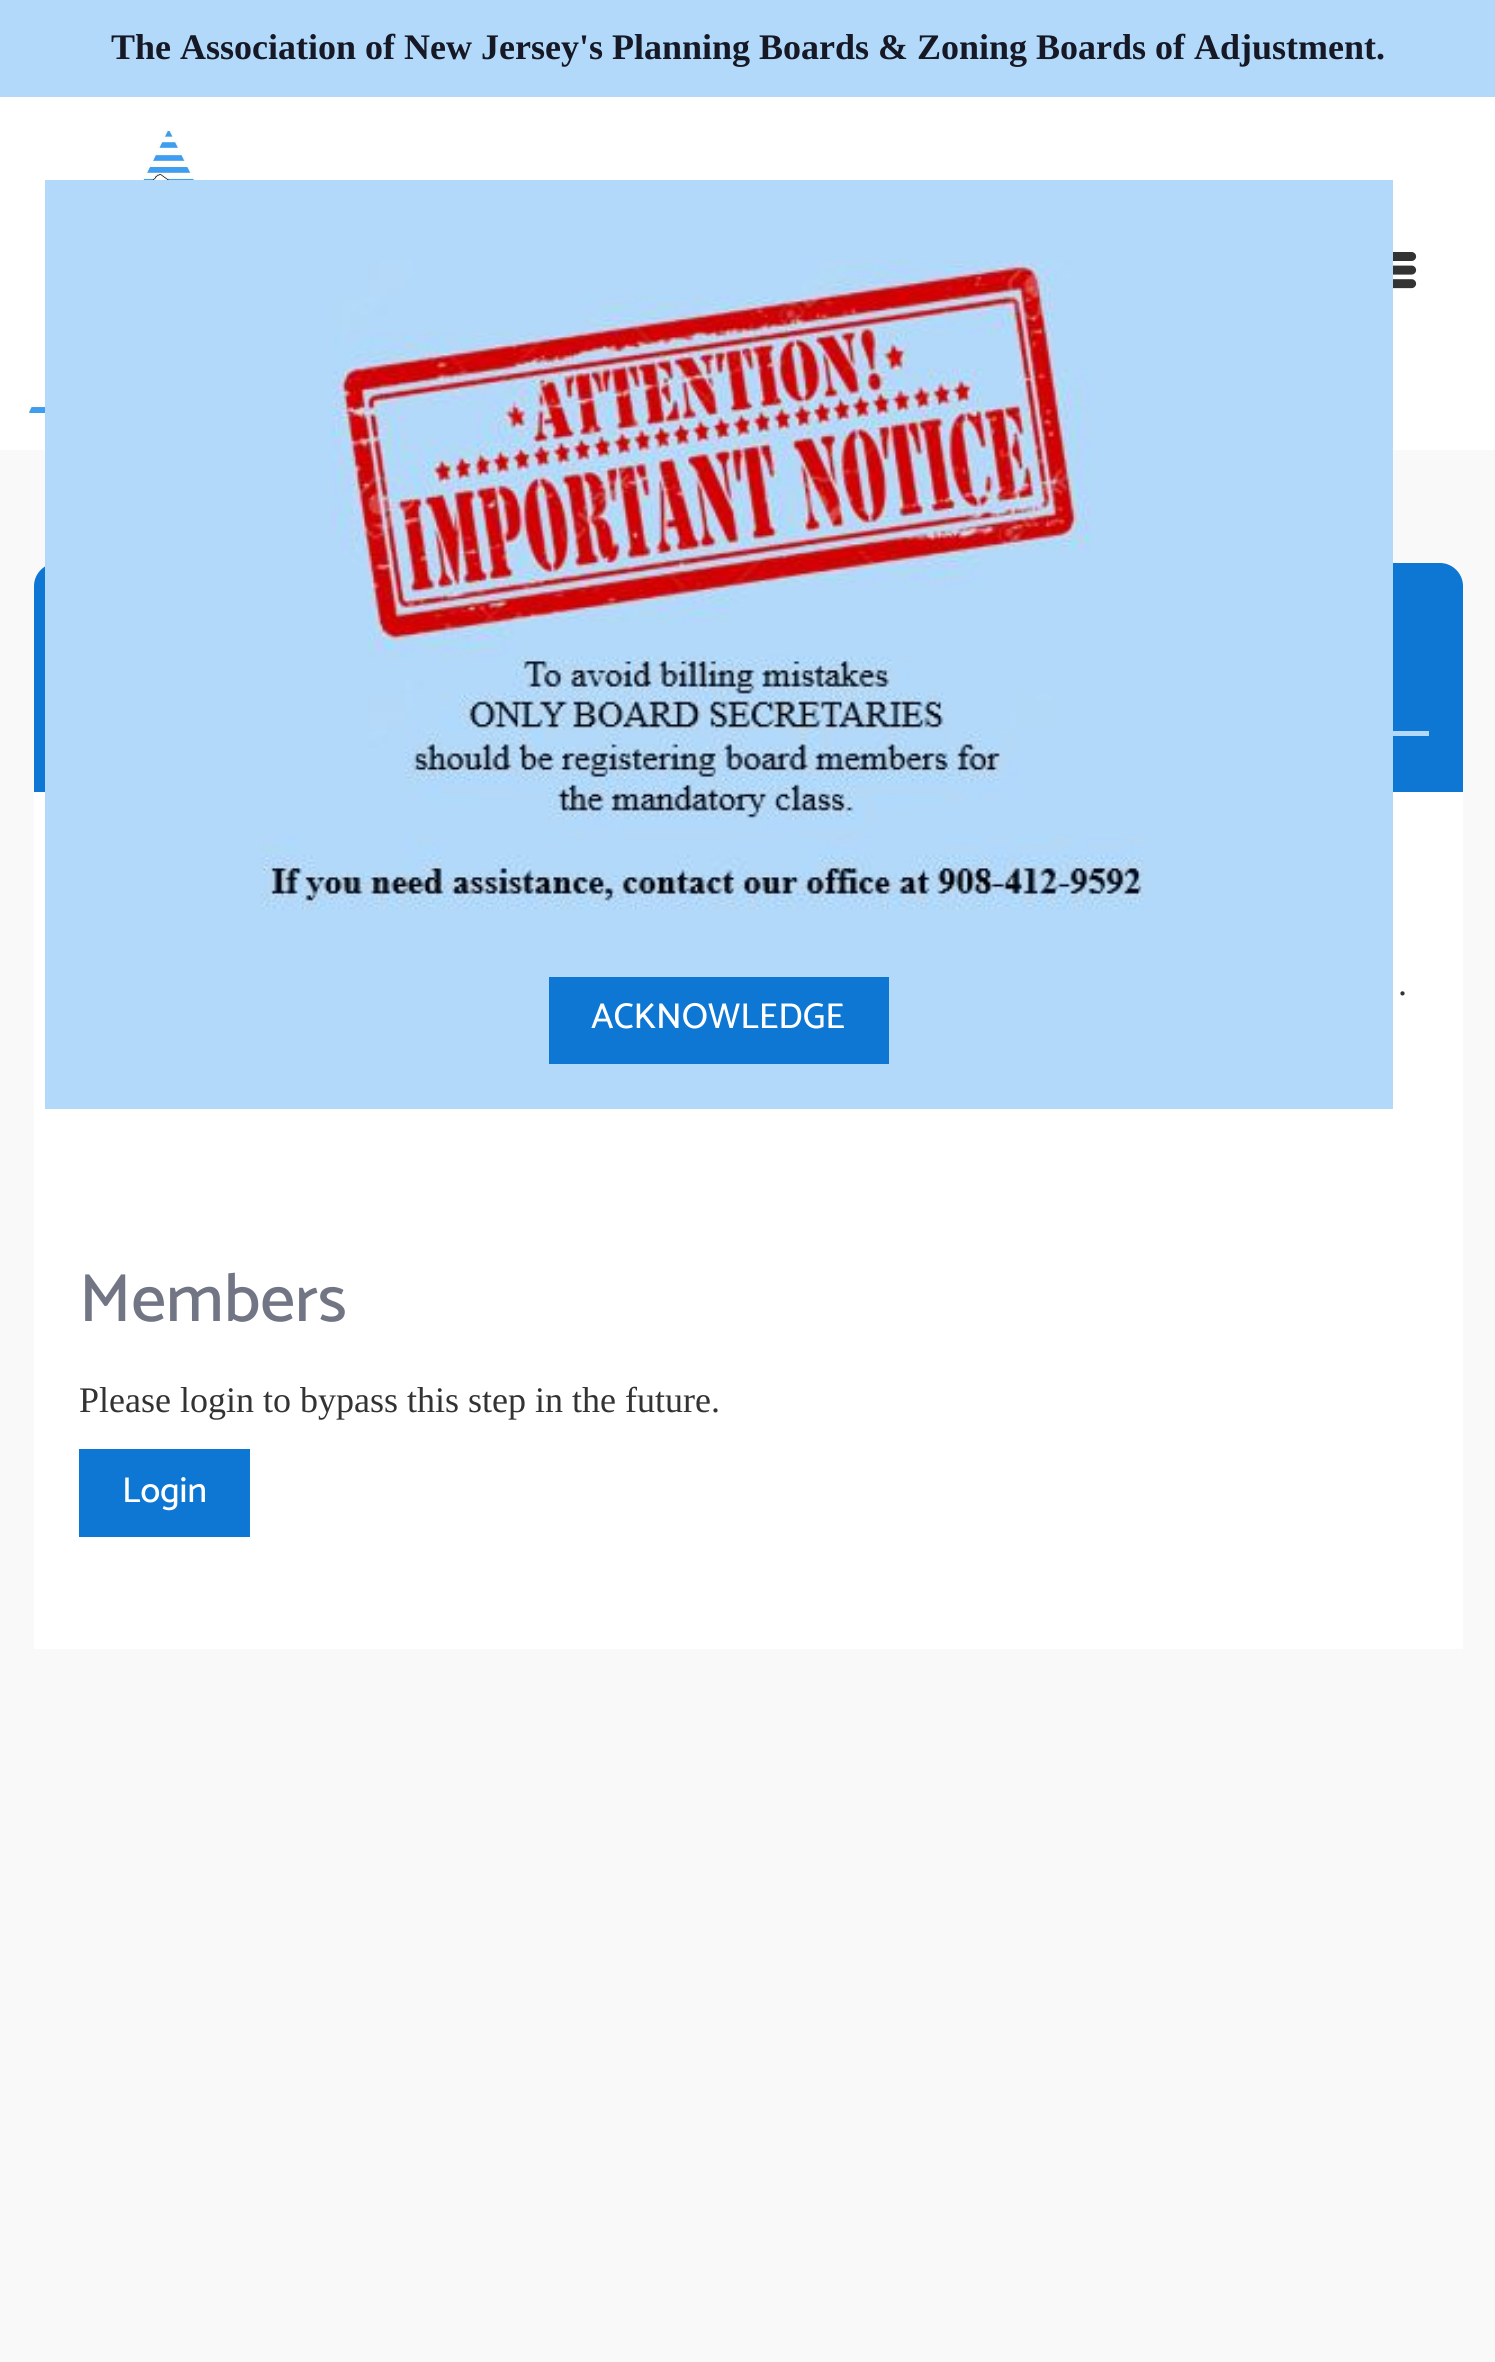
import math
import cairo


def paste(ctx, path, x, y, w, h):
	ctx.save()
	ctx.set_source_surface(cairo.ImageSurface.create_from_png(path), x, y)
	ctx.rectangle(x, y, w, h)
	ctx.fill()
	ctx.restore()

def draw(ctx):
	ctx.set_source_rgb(0.973, 0.973, 0.973)
	ctx.paint()
	ctx.set_source_rgb(0.698, 0.851, 0.98)
	ctx.rectangle(0, 0, 1495, 97)
	ctx.fill()
	ctx.select_font_face('Liberation Serif', cairo.FONT_SLANT_NORMAL, cairo.FONT_WEIGHT_BOLD)
	ctx.set_font_size(36)
	ctx.set_source_rgb(0.086, 0.098, 0.145)
	ctx.move_to(111, 59)
	ctx.show_text('The Association of New Jersey\'s Planning Boards & Zoning Boards of Adjustment.')
	ctx.set_source_rgb(1, 1, 1)
	ctx.rectangle(0, 97, 1495, 353)
	ctx.fill()
	paste(ctx, 'media/1.png', 29, 130, 280, 286)
	paste(ctx, 'media/2.png', 1393, 252, 24, 37)
	ctx.set_source_rgb(0.051, 0.467, 0.827)
	ctx.new_path()
	ctx.move_to(57, 563)
	ctx.line_to(1440, 563)
	ctx.curve_to(1452.5, 563, 1463, 573.5, 1463, 586)
	ctx.line_to(1463, 792)
	ctx.line_to(34, 792)
	ctx.line_to(34, 586)
	ctx.curve_to(34, 573.5, 44.5, 563, 57, 563)
	ctx.close_path()
	ctx.fill()
	ctx.set_source_rgb(0.698, 0.851, 0.98)
	ctx.rectangle(1393, 731, 36, 5)
	ctx.fill()
	ctx.set_source_rgb(1, 1, 1)
	ctx.rectangle(34, 792, 1429, 857)
	ctx.fill()
	ctx.select_font_face('Liberation Serif')
	ctx.set_source_rgb(0.2, 0.2, 0.2)
	ctx.move_to(1398, 995)
	ctx.show_text('.')
	ctx.select_font_face('Catamaran Medium')
	ctx.set_font_size(68.5)
	ctx.set_source_rgb(0.443, 0.459, 0.518)
	ctx.move_to(79, 1321)
	ctx.show_text('Members')
	ctx.select_font_face('Liberation Serif')
	ctx.set_font_size(36)
	ctx.set_source_rgb(0.2, 0.2, 0.2)
	ctx.move_to(79, 1412)
	ctx.show_text('Please login to bypass this step in the future.')
	ctx.set_source_rgb(0.051, 0.467, 0.827)
	ctx.rectangle(79, 1449, 171, 88)
	ctx.fill()
	ctx.select_font_face('Catamaran Medium')
	ctx.set_source_rgb(1, 1, 1)
	ctx.move_to(122, 1502)
	ctx.show_text('Login')
	ctx.set_source_rgb(0.698, 0.851, 0.98)
	ctx.rectangle(45, 180, 1348, 929)
	ctx.fill()
	paste(ctx, 'media/3.png', 260, 260, 886, 650)
	ctx.set_source_rgb(0.051, 0.467, 0.827)
	ctx.rectangle(549, 977, 340, 87)
	ctx.fill()
	ctx.set_source_rgb(1, 1, 1)
	ctx.move_to(591, 1028)
	ctx.show_text('ACKNOWLEDGE')


surface = cairo.ImageSurface(cairo.FORMAT_RGB24, 1495, 2362)
ctx = cairo.Context(surface)
options = cairo.FontOptions()
options.set_hint_metrics(cairo.HINT_METRICS_OFF)
options.set_hint_style(cairo.HINT_STYLE_NONE)
ctx.set_font_options(options)
ctx.set_miter_limit(4)
draw(ctx)
surface.write_to_png('image.png')
